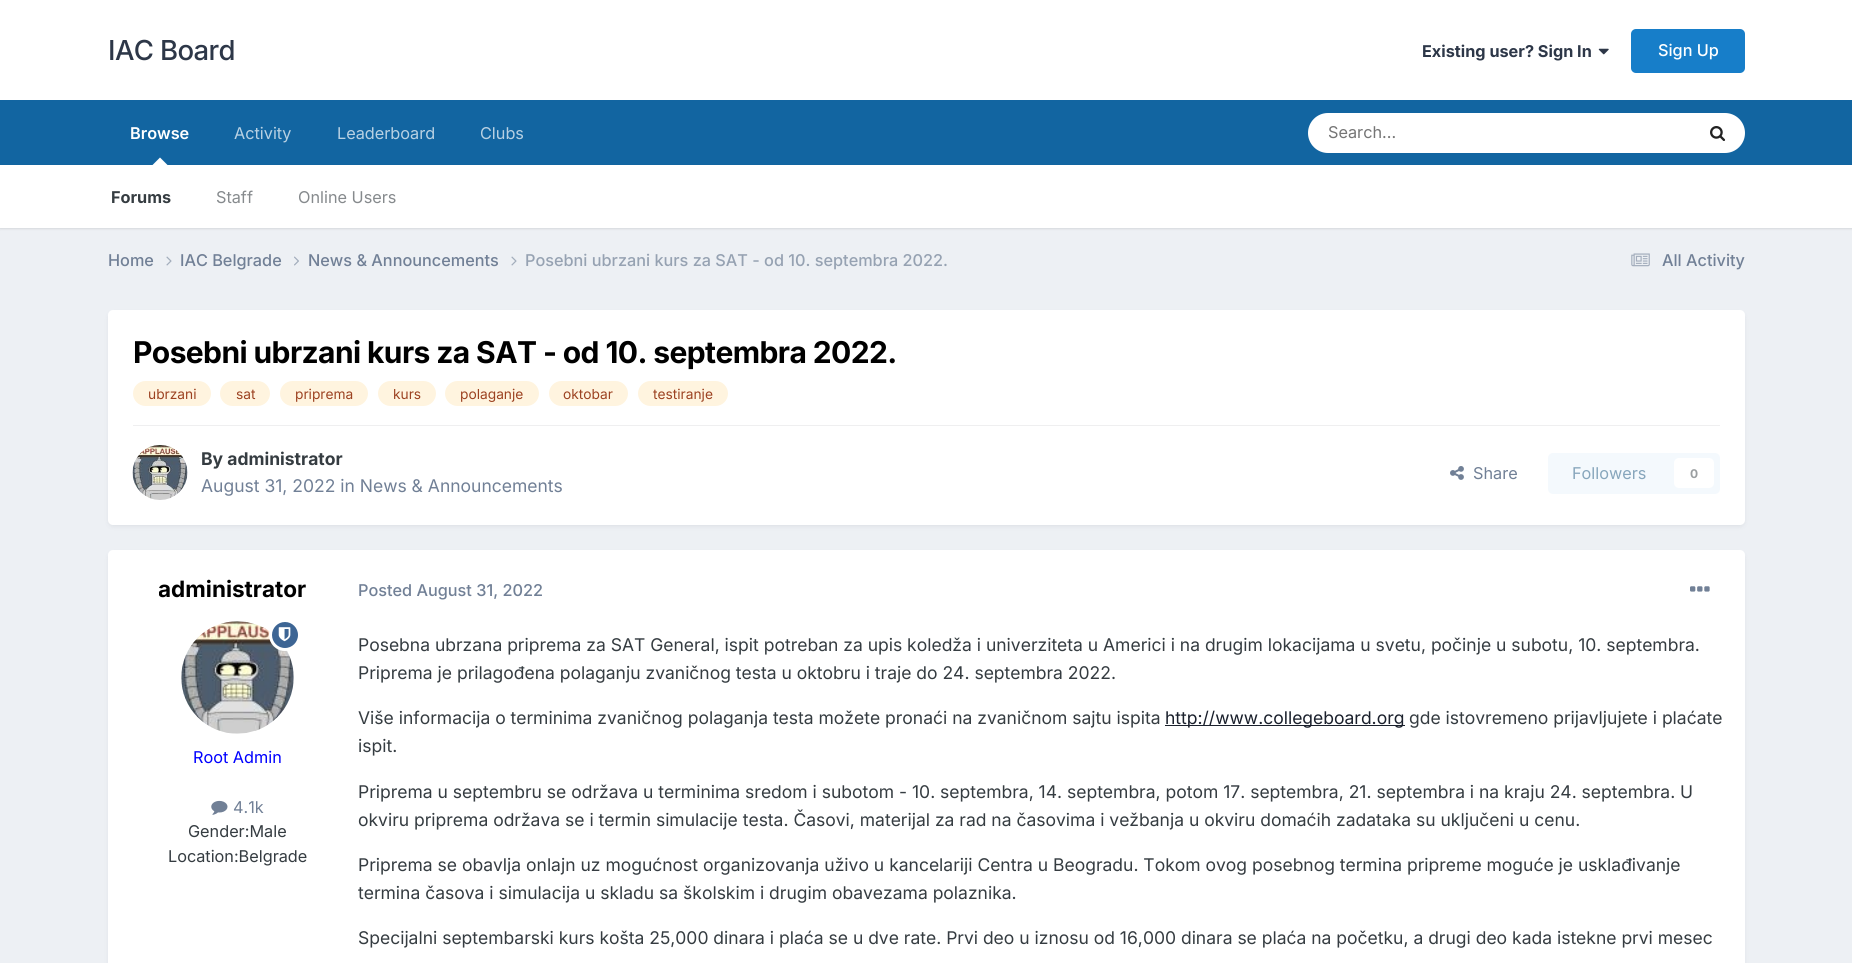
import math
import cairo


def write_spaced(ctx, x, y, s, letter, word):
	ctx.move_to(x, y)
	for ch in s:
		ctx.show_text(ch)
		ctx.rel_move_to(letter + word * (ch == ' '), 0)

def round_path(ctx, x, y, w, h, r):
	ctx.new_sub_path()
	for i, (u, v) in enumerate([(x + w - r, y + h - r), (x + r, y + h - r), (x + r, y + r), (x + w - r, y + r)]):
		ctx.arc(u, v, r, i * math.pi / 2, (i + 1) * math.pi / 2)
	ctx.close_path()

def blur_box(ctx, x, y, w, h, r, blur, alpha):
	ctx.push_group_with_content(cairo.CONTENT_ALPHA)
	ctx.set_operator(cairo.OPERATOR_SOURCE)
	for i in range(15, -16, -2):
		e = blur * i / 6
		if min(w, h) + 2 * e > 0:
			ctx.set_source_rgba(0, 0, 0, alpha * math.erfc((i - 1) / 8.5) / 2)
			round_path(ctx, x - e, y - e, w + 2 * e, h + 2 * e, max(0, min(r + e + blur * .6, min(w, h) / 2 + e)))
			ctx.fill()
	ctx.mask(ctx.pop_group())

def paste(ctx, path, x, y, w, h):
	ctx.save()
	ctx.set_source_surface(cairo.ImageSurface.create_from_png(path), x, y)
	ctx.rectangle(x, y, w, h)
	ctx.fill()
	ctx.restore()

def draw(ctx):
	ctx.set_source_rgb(0.929, 0.941, 0.957)
	ctx.paint()
	ctx.set_source_rgb(1, 1, 1)
	ctx.rectangle(0, 0, 1852, 100)
	ctx.fill()
	ctx.select_font_face('Inter Medium')
	ctx.set_font_size(27.5)
	ctx.set_source_rgb(0.176, 0.216, 0.282)
	write_spaced(ctx, 108, 60, 'IAC Board', -0.6, 0)
	ctx.select_font_face('Inter', cairo.FONT_SLANT_NORMAL, cairo.FONT_WEIGHT_BOLD)
	ctx.set_font_size(16.25)
	ctx.move_to(1422, 57)
	ctx.show_text('Existing user? Sign In')
	paste(ctx, 'media/1.png', 1598, 48, 11, 7)
	ctx.set_source_rgb(0.09, 0.494, 0.788)
	round_path(ctx, 1631, 29, 114, 44, 5)
	ctx.fill()
	ctx.select_font_face('Inter Medium')
	ctx.set_source_rgb(1, 1, 1)
	ctx.move_to(1658, 56)
	ctx.show_text('Sign Up')
	ctx.set_source_rgb(0.071, 0.396, 0.631)
	ctx.rectangle(0, 100, 1852, 65)
	ctx.fill()
	ctx.select_font_face('Inter')
	ctx.set_source_rgb(0.722, 0.82, 0.89)
	ctx.move_to(234, 139)
	ctx.show_text('Activity')
	ctx.select_font_face('Inter SemiBold')
	ctx.set_source_rgb(1, 1, 1)
	ctx.move_to(130, 139)
	ctx.show_text('Browse')
	ctx.set_source_rgb(0, 0, 0)
	blur_box(ctx, 0, 166, 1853, 63, 0, 1, 0.1)
	ctx.set_source_rgb(1, 1, 1)
	ctx.new_path()
	ctx.move_to(167.5, 165)
	ctx.line_to(152.5, 165)
	ctx.line_to(160, 157.5)
	ctx.close_path()
	ctx.fill()
	ctx.rectangle(0, 165, 1852, 63)
	ctx.fill()
	ctx.select_font_face('Inter', cairo.FONT_SLANT_NORMAL, cairo.FONT_WEIGHT_BOLD)
	ctx.set_source_rgb(0.208, 0.235, 0.255)
	ctx.move_to(111, 203)
	ctx.show_text('Forums')
	ctx.select_font_face('Inter')
	ctx.set_source_rgb(0.525, 0.541, 0.553)
	ctx.move_to(216, 203)
	ctx.show_text('Staff')
	ctx.move_to(298, 203)
	ctx.show_text('Online Users')
	ctx.set_source_rgb(0.722, 0.82, 0.89)
	ctx.move_to(337, 139)
	ctx.show_text('Leaderboard')
	ctx.move_to(480, 139)
	ctx.show_text('Clubs')
	ctx.set_source_rgb(1, 1, 1)
	round_path(ctx, 1308, 113, 437, 40, 20)
	ctx.fill()
	ctx.set_source_rgb(0.459, 0.459, 0.459)
	ctx.move_to(1328, 138)
	ctx.show_text('Search...')
	paste(ctx, 'media/2.png', 1710, 126, 16, 15)
	ctx.select_font_face('Inter Medium')
	ctx.set_source_rgb(0.443, 0.502, 0.588)
	ctx.move_to(108, 266)
	ctx.show_text('Home')
	paste(ctx, 'media/3.png', 166, 256, 6, 10)
	ctx.move_to(180, 266)
	ctx.show_text('IAC Belgrade')
	paste(ctx, 'media/4.png', 294, 256, 5, 10)
	ctx.move_to(308, 266)
	ctx.show_text('News & Announcements')
	paste(ctx, 'media/3.png', 511, 256, 6, 10)
	ctx.set_source_rgb(0.588, 0.635, 0.698)
	ctx.move_to(525, 266)
	ctx.show_text('Posebni ubrzani kurs za SAT - od 10. septembra 2022.')
	paste(ctx, 'media/5.png', 1631, 253, 19, 14)
	ctx.set_source_rgb(0.443, 0.502, 0.588)
	ctx.move_to(1662, 266)
	ctx.show_text('All Activity')
	ctx.set_source_rgb(0.176, 0.216, 0.282)
	blur_box(ctx, 109, 314, 1635, 212, 4, 2.5, 0.1)
	ctx.set_source_rgb(1, 1, 1)
	round_path(ctx, 108, 310, 1637, 215, 5)
	ctx.fill()
	ctx.select_font_face('Inter', cairo.FONT_SLANT_NORMAL, cairo.FONT_WEIGHT_BOLD)
	ctx.set_font_size(30)
	ctx.set_source_rgb(0, 0, 0)
	write_spaced(ctx, 133, 363, 'Posebni ubrzani kurs za SAT - od 10. septembra 2022.', -0.6, 0)
	ctx.set_source_rgb(1, 0.957, 0.875)
	round_path(ctx, 133, 381, 78, 25, 12.5)
	ctx.fill()
	ctx.select_font_face('Inter')
	ctx.set_font_size(13.75)
	ctx.set_source_rgb(0.612, 0.259, 0.129)
	ctx.move_to(148, 399)
	ctx.show_text('ubrzani')
	ctx.set_source_rgb(1, 0.957, 0.875)
	round_path(ctx, 220, 381, 50, 25, 12.5)
	ctx.fill()
	ctx.set_source_rgb(0.612, 0.259, 0.129)
	ctx.move_to(236, 399)
	ctx.show_text('sat')
	ctx.set_source_rgb(1, 0.957, 0.875)
	round_path(ctx, 280, 381, 88, 25, 12.5)
	ctx.fill()
	ctx.set_source_rgb(0.612, 0.259, 0.129)
	ctx.move_to(295, 399)
	ctx.show_text('priprema')
	ctx.set_source_rgb(1, 0.957, 0.875)
	round_path(ctx, 378, 381, 58, 25, 12.5)
	ctx.fill()
	ctx.set_source_rgb(0.612, 0.259, 0.129)
	ctx.move_to(393, 399)
	ctx.show_text('kurs')
	ctx.set_source_rgb(1, 0.957, 0.875)
	round_path(ctx, 445, 381, 94, 25, 12.5)
	ctx.fill()
	ctx.set_source_rgb(0.612, 0.259, 0.129)
	ctx.move_to(460, 399)
	ctx.show_text('polaganje')
	ctx.set_source_rgb(1, 0.957, 0.875)
	round_path(ctx, 549, 381, 79, 25, 12.5)
	ctx.fill()
	ctx.set_source_rgb(0.612, 0.259, 0.129)
	ctx.move_to(563, 399)
	ctx.show_text('oktobar')
	ctx.set_source_rgb(1, 0.957, 0.875)
	round_path(ctx, 638, 381, 90, 25, 12.5)
	ctx.fill()
	ctx.set_source_rgb(0.612, 0.259, 0.129)
	ctx.move_to(653, 399)
	ctx.show_text('testiranje')
	ctx.set_source_rgb(0.937, 0.937, 0.941)
	ctx.rectangle(133, 425, 1587, 1)
	ctx.fill()
	paste(ctx, 'media/6.png', 132, 445, 56, 55)
	ctx.select_font_face('Inter', cairo.FONT_SLANT_NORMAL, cairo.FONT_WEIGHT_BOLD)
	ctx.set_font_size(17.5)
	ctx.set_source_rgb(0.208, 0.235, 0.255)
	ctx.move_to(201, 465)
	ctx.show_text('By administrator')
	ctx.select_font_face('Inter')
	ctx.set_source_rgb(0.443, 0.502, 0.588)
	ctx.move_to(201, 492)
	ctx.show_text('August 31, 2022 in News & Announcements')
	paste(ctx, 'media/7.png', 1450, 466, 14, 14)
	ctx.set_font_size(16.25)
	ctx.move_to(1473, 479)
	ctx.show_text('Share')
	ctx.set_source_rgb(0.957, 0.976, 0.992)
	round_path(ctx, 1548, 453, 172, 41, 5)
	ctx.fill()
	ctx.set_source_rgb(0.529, 0.651, 0.737)
	ctx.move_to(1572, 479)
	ctx.show_text('Followers')
	ctx.set_source_rgb(1, 1, 1)
	round_path(ctx, 1674, 458, 40, 30, 5)
	ctx.fill()
	ctx.select_font_face('Inter', cairo.FONT_SLANT_NORMAL, cairo.FONT_WEIGHT_BOLD)
	ctx.set_font_size(12)
	ctx.set_source_rgb(0.604, 0.62, 0.627)
	ctx.move_to(1690, 478)
	ctx.show_text('0')
	ctx.set_source_rgb(0.176, 0.216, 0.282)
	blur_box(ctx, 109, 554, 1635, 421, 4, 2.5, 0.1)
	ctx.set_source_rgb(1, 1, 1)
	round_path(ctx, 108, 550, 1637, 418, 5)
	ctx.fill()
	ctx.save()
	ctx.rectangle(159, 575, 147, 28)
	ctx.clip()
	ctx.set_font_size(22.5)
	ctx.set_source_rgb(0, 0, 0)
	ctx.move_to(158, 597)
	ctx.show_text('administrator')
	ctx.restore()
	paste(ctx, 'media/9.png', 181, 621, 113, 113)
	ctx.set_source_rgb(0.239, 0.396, 0.58)
	ctx.arc(285, 635, 14.5, 0, 2 * math.pi)
	ctx.fill_preserve()
	ctx.set_source_rgb(1, 1, 1)
	ctx.set_line_width(3)
	ctx.stroke()
	paste(ctx, 'media/8.png', 278, 627, 13, 15)
	ctx.select_font_face('Inter')
	ctx.set_font_size(16.25)
	ctx.set_source_rgb(0, 0, 1)
	ctx.move_to(193, 763)
	ctx.show_text('Root Admin')
	paste(ctx, 'media/10.png', 211, 800, 17, 15)
	ctx.set_source_rgb(0.443, 0.502, 0.588)
	ctx.move_to(233, 813)
	ctx.show_text('4.1k')
	ctx.set_source_rgb(0.208, 0.235, 0.255)
	ctx.move_to(188, 837)
	ctx.show_text('Gender:Male')
	ctx.move_to(168, 862)
	ctx.show_text('Location:Belgrade')
	ctx.select_font_face('Inter Medium')
	ctx.set_source_rgb(0.443, 0.502, 0.588)
	ctx.move_to(358, 596)
	ctx.show_text('Posted August 31, 2022')
	paste(ctx, 'media/11.png', 1690, 586, 20, 6)
	ctx.select_font_face('Inter')
	ctx.set_font_size(17.5)
	ctx.set_source_rgb(0.208, 0.235, 0.255)
	for x, y, s in [
		(358, 651, 'Posebna ubrzana priprema za SAT General, ispit potreban za upis koledža i univerziteta u Americi i na drugim lokacijama u svetu, počinje u subotu, 10. septembra.'),
		(358, 679, 'Priprema je prilagođena polaganju zvaničnog testa u oktobru i traje do 24. septembra 2022.'),
		(358, 724, 'Više informacija o terminima zvaničnog polaganja testa možete pronaći na zvaničnom sajtu ispita'),
	]:
		ctx.move_to(x, y)
		ctx.show_text(s)
	ctx.set_source_rgb(0.102, 0.125, 0.173)
	ctx.rectangle(1165, 725, 240, 1)
	ctx.fill()
	ctx.move_to(1165, 724)
	ctx.show_text('http://www.collegeboard.org')
	ctx.set_source_rgb(0.208, 0.235, 0.255)
	for x, y, s in [
		(1409, 724, 'gde istovremeno prijavljujete i plaćate'),
		(358, 752, 'ispit.'),
		(358, 798, 'Priprema u septembru se održava u terminima sredom i subotom - 10. septembra, 14. septembra, potom 17. septembra, 21. septembra i na kraju 24. septembra. U'),
		(358, 826, 'okviru priprema održava se i termin simulacije testa. Časovi, materijal za rad na časovima i vežbanja u okviru domaćih zadataka su uključeni u cenu.'),
		(358, 871, 'Priprema se obavlja onlajn uz mogućnost organizovanja uživo u kancelariji Centra u Beogradu. Tokom ovog posebnog termina pripreme moguće je usklađivanje'),
		(358, 899, 'termina časova i simulacija u skladu sa školskim i drugim obavezama polaznika.'),
		(358, 944, 'Specijalni septembarski kurs košta 25,000 dinara i plaća se u dve rate. Prvi deo u iznosu od 16,000 dinara se plaća na početku, a drugi deo kada istekne prvi mesec'),
	]:
		ctx.move_to(x, y)
		ctx.show_text(s)


surface = cairo.ImageSurface(cairo.FORMAT_RGB24, 1852, 963)
ctx = cairo.Context(surface)
options = cairo.FontOptions()
options.set_hint_metrics(cairo.HINT_METRICS_OFF)
options.set_hint_style(cairo.HINT_STYLE_NONE)
ctx.set_font_options(options)
ctx.set_miter_limit(4)
draw(ctx)
surface.write_to_png('image.png')
